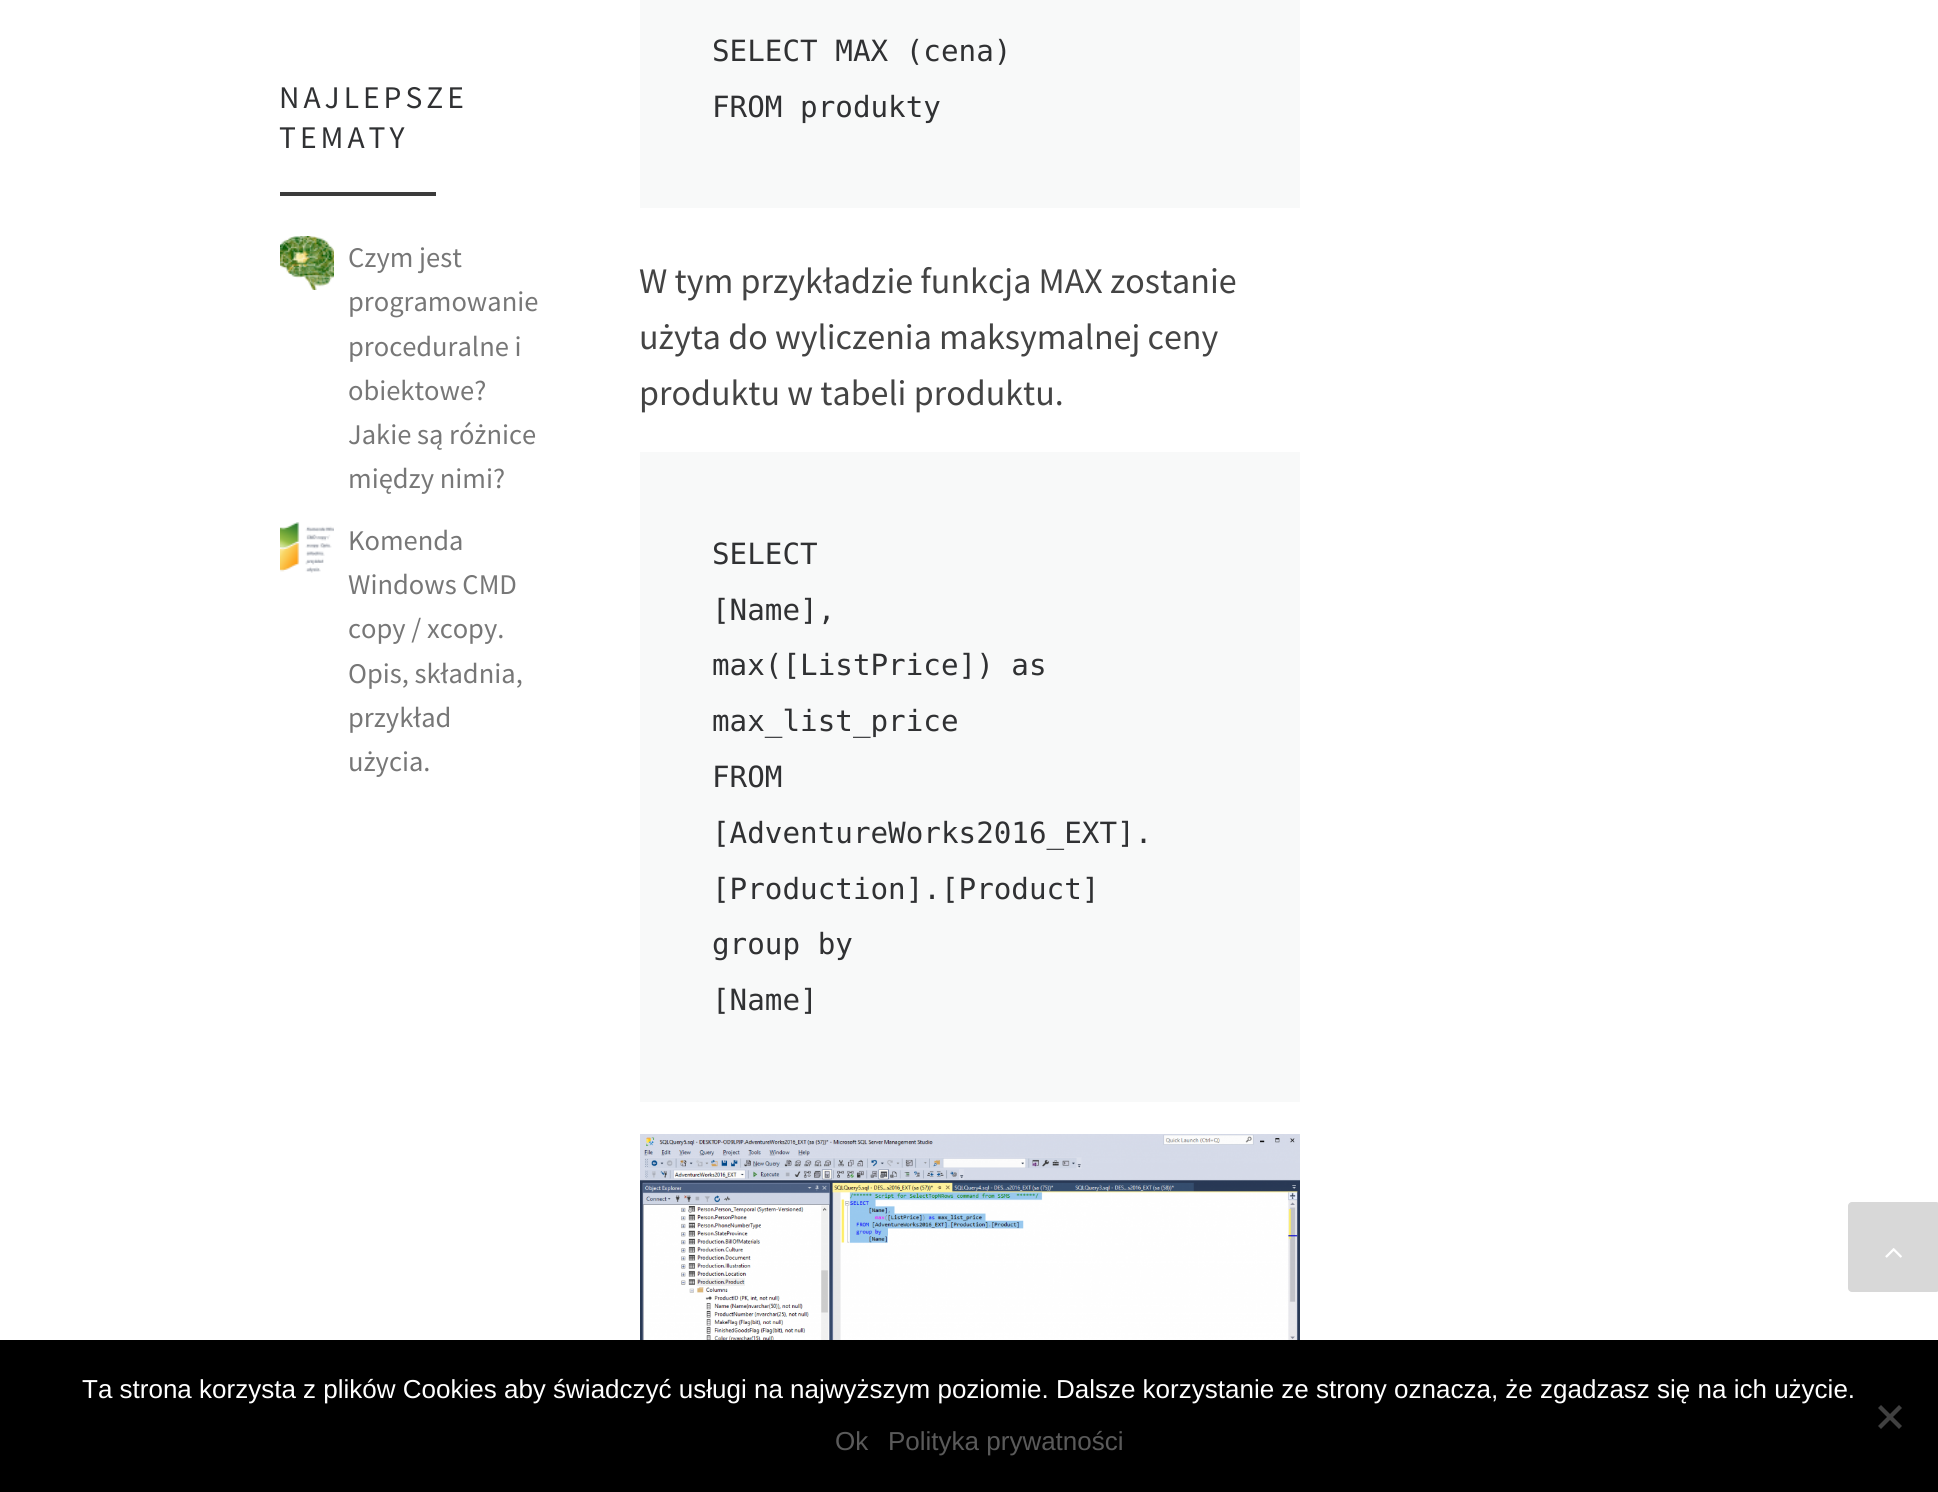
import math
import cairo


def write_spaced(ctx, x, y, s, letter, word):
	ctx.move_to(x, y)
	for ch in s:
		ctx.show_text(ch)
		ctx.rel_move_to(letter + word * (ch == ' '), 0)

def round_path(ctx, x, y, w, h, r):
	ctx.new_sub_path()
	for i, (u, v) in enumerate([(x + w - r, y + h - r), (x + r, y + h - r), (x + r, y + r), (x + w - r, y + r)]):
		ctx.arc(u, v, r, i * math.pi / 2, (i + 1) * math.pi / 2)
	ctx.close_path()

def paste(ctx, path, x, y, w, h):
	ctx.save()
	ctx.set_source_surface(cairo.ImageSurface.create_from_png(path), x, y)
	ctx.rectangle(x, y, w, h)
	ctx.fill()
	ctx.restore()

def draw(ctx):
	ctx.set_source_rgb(1, 1, 1)
	ctx.paint()
	ctx.select_font_face('Source Sans Pro')
	ctx.set_font_size(31.5)
	ctx.set_source_rgb(0.188, 0.192, 0.2)
	write_spaced(ctx, 279, 108, 'NAJLEPSZE', 4, 0)
	write_spaced(ctx, 279, 148, 'TEMATY', 4, 0)
	ctx.set_source_rgb(0.231, 0.231, 0.231)
	ctx.rectangle(280, 192, 156, 4)
	ctx.fill()
	paste(ctx, 'media/1.png', 280, 236, 54, 54)
	ctx.set_font_size(28.5)
	ctx.set_source_rgb(0.467, 0.467, 0.467)
	for x, y, s in [
		(348, 267, 'Czym jest'),
		(348, 311, 'programowanie'),
		(348, 356, 'proceduralne i'),
		(348, 400, 'obiektowe?'),
		(348, 444, 'Jakie są różnice'),
		(348, 488, 'między nimi?'),
	]:
		ctx.move_to(x, y)
		ctx.show_text(s)
	paste(ctx, 'media/2.png', 280, 522, 54, 51)
	for x, y, s in [
		(348, 550, 'Komenda'),
		(348, 594, 'Windows CMD'),
		(348, 638, 'copy / xcopy.'),
		(348, 683, 'Opis, składnia,'),
		(348, 727, 'przykład'),
		(348, 771, 'użycia.'),
	]:
		ctx.move_to(x, y)
		ctx.show_text(s)
	ctx.set_source_rgb(0.969, 0.973, 0.976)
	ctx.rectangle(640, 0, 660, 208)
	ctx.fill()
	ctx.select_font_face('DejaVu Sans Mono')
	ctx.set_font_size(29.25)
	ctx.set_source_rgb(0.188, 0.192, 0.2)
	ctx.move_to(712, 61)
	ctx.show_text('SELECT MAX (cena)')
	ctx.move_to(712, 117)
	ctx.show_text('FROM produkty')
	ctx.select_font_face('Source Sans Pro')
	ctx.set_font_size(36)
	ctx.set_source_rgb(0.267, 0.267, 0.267)
	for x, y, s in [
		(639, 293, 'W tym przykładzie funkcja MAX zostanie'),
		(639, 349, 'użyta do wyliczenia maksymalnej ceny'),
		(639, 405, 'produktu w tabeli produktu.'),
	]:
		ctx.move_to(x, y)
		ctx.show_text(s)
	ctx.set_source_rgb(0.969, 0.973, 0.976)
	ctx.rectangle(640, 452, 660, 650)
	ctx.fill()
	ctx.select_font_face('DejaVu Sans Mono')
	ctx.set_font_size(29.25)
	ctx.set_source_rgb(0.188, 0.192, 0.2)
	for x, y, s in [
		(712, 564, 'SELECT'),
		(712, 620, '[Name],'),
		(712, 675, 'max([ListPrice]) as'),
		(712, 731, 'max_list_price'),
		(712, 787, 'FROM'),
		(712, 843, '[AdventureWorks2016_EXT].'),
		(712, 899, '[Production].[Product]'),
		(712, 954, 'group by'),
		(712, 1010, '[Name]'),
	]:
		ctx.move_to(x, y)
		ctx.show_text(s)
	paste(ctx, 'media/3.png', 640, 1134, 660, 206)
	ctx.set_source_rgb(0.847, 0.847, 0.847)
	round_path(ctx, 1848, 1202, 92, 90, 4)
	ctx.fill()
	paste(ctx, 'media/4.png', 1885, 1248, 17, 10)
	ctx.set_source_rgb(0, 0, 0)
	ctx.rectangle(0, 1340, 1938, 152)
	ctx.fill()
	ctx.select_font_face('Liberation Sans')
	ctx.set_font_size(26)
	ctx.set_source_rgb(1, 1, 1)
	ctx.move_to(82, 1398)
	ctx.show_text('Ta strona korzysta z plików Cookies aby świadczyć usługi na najwyższym poziomie. Dalsze korzystanie ze strony oznacza, że zgadzasz się na ich użycie.')
	ctx.set_source_rgb(0.251, 0.251, 0.251)
	ctx.new_path()
	ctx.move_to(1899, 1405)
	ctx.line_to(1902, 1408)
	ctx.line_to(1881, 1429)
	ctx.line_to(1878, 1426)
	ctx.close_path()
	ctx.fill()
	ctx.new_path()
	ctx.move_to(1878, 1408)
	ctx.line_to(1881, 1405)
	ctx.line_to(1902, 1426)
	ctx.line_to(1899, 1429)
	ctx.close_path()
	ctx.fill()
	ctx.set_source_rgb(0.353, 0.353, 0.353)
	ctx.move_to(835, 1450)
	ctx.show_text('Ok')
	ctx.move_to(888, 1450)
	ctx.show_text('Polityka prywatności')


surface = cairo.ImageSurface(cairo.FORMAT_RGB24, 1938, 1492)
ctx = cairo.Context(surface)
options = cairo.FontOptions()
options.set_hint_metrics(cairo.HINT_METRICS_OFF)
options.set_hint_style(cairo.HINT_STYLE_NONE)
ctx.set_font_options(options)
ctx.set_miter_limit(4)
draw(ctx)
surface.write_to_png('image.png')
